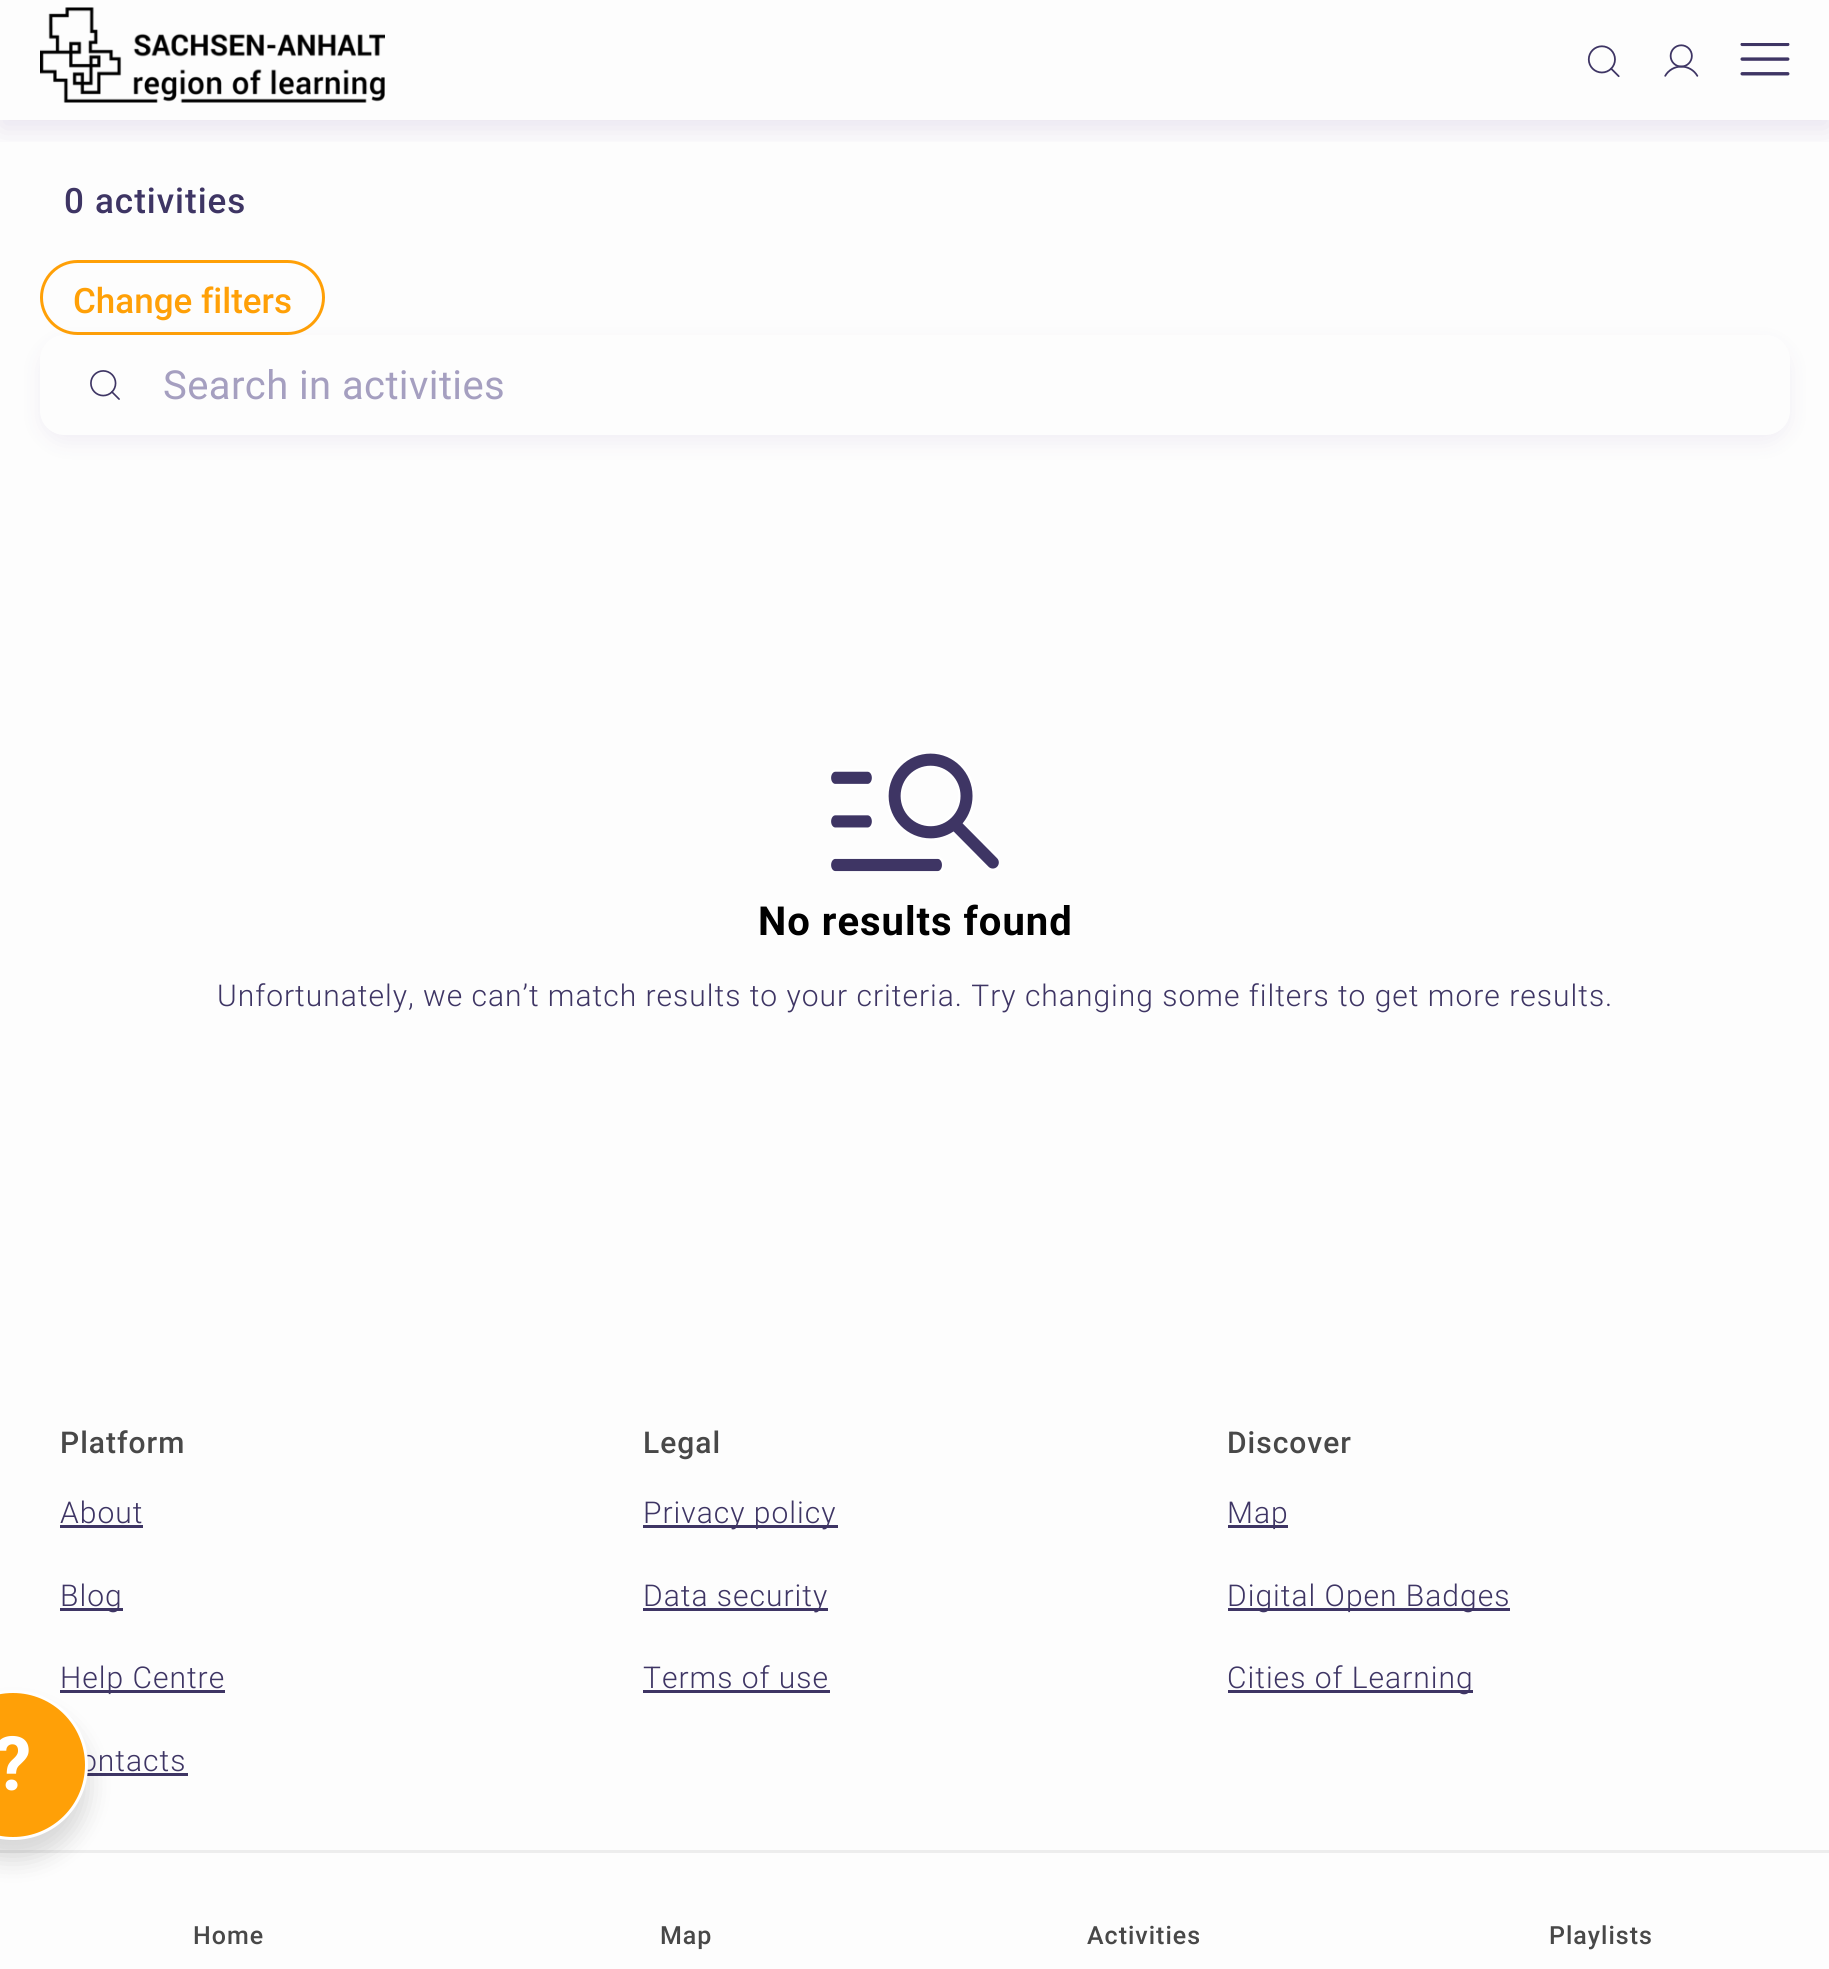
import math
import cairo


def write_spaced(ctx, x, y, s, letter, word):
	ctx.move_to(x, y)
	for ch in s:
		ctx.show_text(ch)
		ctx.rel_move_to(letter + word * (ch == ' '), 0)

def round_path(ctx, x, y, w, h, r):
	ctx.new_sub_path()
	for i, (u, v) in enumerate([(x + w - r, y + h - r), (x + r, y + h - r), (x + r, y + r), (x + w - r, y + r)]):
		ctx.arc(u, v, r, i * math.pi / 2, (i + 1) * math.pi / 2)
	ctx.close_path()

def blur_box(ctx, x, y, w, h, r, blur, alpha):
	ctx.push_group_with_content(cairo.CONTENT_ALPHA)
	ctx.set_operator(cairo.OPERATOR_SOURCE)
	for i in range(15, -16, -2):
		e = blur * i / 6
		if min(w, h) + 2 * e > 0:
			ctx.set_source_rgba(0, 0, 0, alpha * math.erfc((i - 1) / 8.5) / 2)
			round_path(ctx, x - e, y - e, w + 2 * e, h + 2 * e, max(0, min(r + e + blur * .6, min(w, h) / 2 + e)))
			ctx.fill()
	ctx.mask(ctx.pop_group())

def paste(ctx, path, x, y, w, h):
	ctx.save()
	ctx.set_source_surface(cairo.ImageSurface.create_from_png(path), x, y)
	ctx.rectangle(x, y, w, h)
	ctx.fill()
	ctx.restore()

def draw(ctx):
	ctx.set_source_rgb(0.992, 0.992, 0.992)
	ctx.paint()
	ctx.save()
	ctx.rectangle(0, 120, 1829, 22)
	ctx.clip()
	ctx.set_source_rgb(0.188, 0.024, 0.447)
	blur_box(ctx, 0, 8, 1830, 120, 0, 15, 0.11)
	ctx.restore()
	paste(ctx, 'media/1.png', 40, 7, 345, 96)
	paste(ctx, 'media/2.png', 1587, 45, 33, 33)
	paste(ctx, 'media/3.png', 1664, 44, 35, 33)
	paste(ctx, 'media/4.png', 1740, 43, 50, 33)
	ctx.select_font_face('Roboto Medium')
	ctx.set_font_size(35)
	ctx.set_source_rgb(0.243, 0.208, 0.392)
	write_spaced(ctx, 64, 213, '0', 1, 0)
	write_spaced(ctx, 95, 213, 'activities', 1, 0)
	round_path(ctx, 41.5, 261.5, 282, 72, 36)
	ctx.set_source_rgb(1, 0.627, 0.031)
	ctx.set_line_width(3)
	ctx.stroke()
	ctx.move_to(73, 313)
	ctx.show_text('Change filters')
	ctx.save()
	ctx.set_fill_rule(cairo.FILL_RULE_EVEN_ODD)
	ctx.new_path()
	ctx.move_to(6, 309)
	ctx.line_to(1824, 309)
	ctx.line_to(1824, 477)
	ctx.line_to(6, 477)
	ctx.close_path()
	ctx.move_to(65, 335)
	ctx.line_to(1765, 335)
	ctx.curve_to(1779, 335, 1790, 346, 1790, 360)
	ctx.line_to(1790, 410)
	ctx.curve_to(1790, 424, 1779, 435, 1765, 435)
	ctx.line_to(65, 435)
	ctx.curve_to(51, 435, 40, 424, 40, 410)
	ctx.line_to(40, 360)
	ctx.curve_to(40, 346, 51, 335, 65, 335)
	ctx.close_path()
	ctx.clip()
	ctx.set_source_rgb(0.188, 0.024, 0.447)
	blur_box(ctx, 40, 343, 1750, 100, 25, 11, 0.06)
	ctx.restore()
	paste(ctx, 'media/5.png', 90, 370, 30, 30)
	ctx.select_font_face('Roboto')
	ctx.set_font_size(40)
	ctx.set_source_rgb(0.647, 0.624, 0.753)
	write_spaced(ctx, 163, 399, 'Search in activities', 0.4, 0)
	paste(ctx, 'media/6.png', 831, 753, 168, 119)
	ctx.select_font_face('Roboto', cairo.FONT_SLANT_NORMAL, cairo.FONT_WEIGHT_BOLD)
	ctx.set_source_rgb(0, 0, 0)
	write_spaced(ctx, 758, 935, 'No results found', 1, 0)
	ctx.select_font_face('Roboto Light')
	ctx.set_font_size(30)
	ctx.set_source_rgb(0.243, 0.208, 0.392)
	write_spaced(ctx, 217, 1006, 'Unfortunately, we can’t match results to your criteria. Try changing some filters to get more results.', 1, 0)
	ctx.rectangle(60, 1690, 165, 3)
	ctx.rectangle(87, 1773, 101, 3)
	ctx.fill()
	ctx.set_source_rgb(0.929, 0.929, 0.929)
	ctx.rectangle(0, 1850, 1829, 3)
	ctx.fill()
	ctx.set_source_rgb(0, 0, 0)
	blur_box(ctx, -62, 1710, 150, 150, 75, 12.5, 0.15)
	ctx.set_source_rgb(0.243, 0.208, 0.392)
	write_spaced(ctx, 60, 1688, 'Help Centre', 1, 0)
	write_spaced(ctx, 80, 1771, 'ontacts', 1, 0)
	ctx.set_source_rgb(1, 0.627, 0.031)
	ctx.new_path()
	ctx.arc(13, 1765, 73.5, 0, 2 * math.pi)
	ctx.fill_preserve()
	ctx.set_source_rgb(1, 1, 1)
	ctx.stroke()
	ctx.select_font_face('Roboto', cairo.FONT_SLANT_NORMAL, cairo.FONT_WEIGHT_BOLD)
	ctx.set_font_size(75)
	write_spaced(ctx, -6, 1790, '?', 1, 0)
	ctx.select_font_face('Roboto Medium')
	ctx.set_font_size(30)
	ctx.set_source_rgb(0.282, 0.282, 0.282)
	write_spaced(ctx, 60, 1453, 'Platform', 1, 0)
	ctx.select_font_face('Roboto Light')
	ctx.set_source_rgb(0.243, 0.208, 0.392)
	write_spaced(ctx, 60, 1523, 'About', 1, 0)
	ctx.rectangle(60, 1525, 83, 3)
	ctx.fill()
	ctx.rectangle(60, 1608, 63, 3)
	ctx.fill()
	write_spaced(ctx, 60, 1606, 'Blog', 1, 0)
	ctx.select_font_face('Roboto Medium')
	ctx.set_source_rgb(0.282, 0.282, 0.282)
	write_spaced(ctx, 643, 1453, 'Legal', 1, 0)
	ctx.set_source_rgb(0.243, 0.208, 0.392)
	ctx.rectangle(643, 1525, 195, 3)
	ctx.fill()
	ctx.select_font_face('Roboto Light')
	write_spaced(ctx, 643, 1523, 'Privacy policy', 1, 0)
	ctx.rectangle(643, 1608, 185, 3)
	ctx.fill()
	write_spaced(ctx, 643, 1606, 'Data security', 1, 0)
	write_spaced(ctx, 643, 1688, 'Terms of use', 1, 0)
	ctx.rectangle(643, 1690, 187, 3)
	ctx.fill()
	ctx.select_font_face('Roboto Medium')
	ctx.set_source_rgb(0.282, 0.282, 0.282)
	write_spaced(ctx, 1227, 1453, 'Discover', 1, 0)
	ctx.set_source_rgb(0.243, 0.208, 0.392)
	ctx.rectangle(1228, 1525, 60, 3)
	ctx.fill()
	ctx.select_font_face('Roboto Light')
	write_spaced(ctx, 1227, 1523, 'Map', 1, 0)
	ctx.rectangle(1228, 1608, 282, 3)
	ctx.fill()
	write_spaced(ctx, 1227, 1606, 'Digital Open Badges', 1, 0)
	ctx.rectangle(1228, 1690, 245, 3)
	ctx.fill()
	write_spaced(ctx, 1227, 1688, 'Cities of Learning', 1, 0)
	ctx.select_font_face('Roboto Medium')
	ctx.set_font_size(25)
	ctx.set_source_rgb(0.282, 0.282, 0.282)
	for x, y, s in [
		(193, 1944, 'Home'),
		(660, 1944, 'Map'),
		(1087, 1944, 'Activities'),
		(1549, 1944, 'Playlists'),
	]:
		write_spaced(ctx, x, y, s, 1, 0)


surface = cairo.ImageSurface(cairo.FORMAT_RGB24, 1829, 1969)
ctx = cairo.Context(surface)
options = cairo.FontOptions()
options.set_hint_metrics(cairo.HINT_METRICS_OFF)
options.set_hint_style(cairo.HINT_STYLE_NONE)
ctx.set_font_options(options)
ctx.set_miter_limit(4)
draw(ctx)
surface.write_to_png('image.png')
